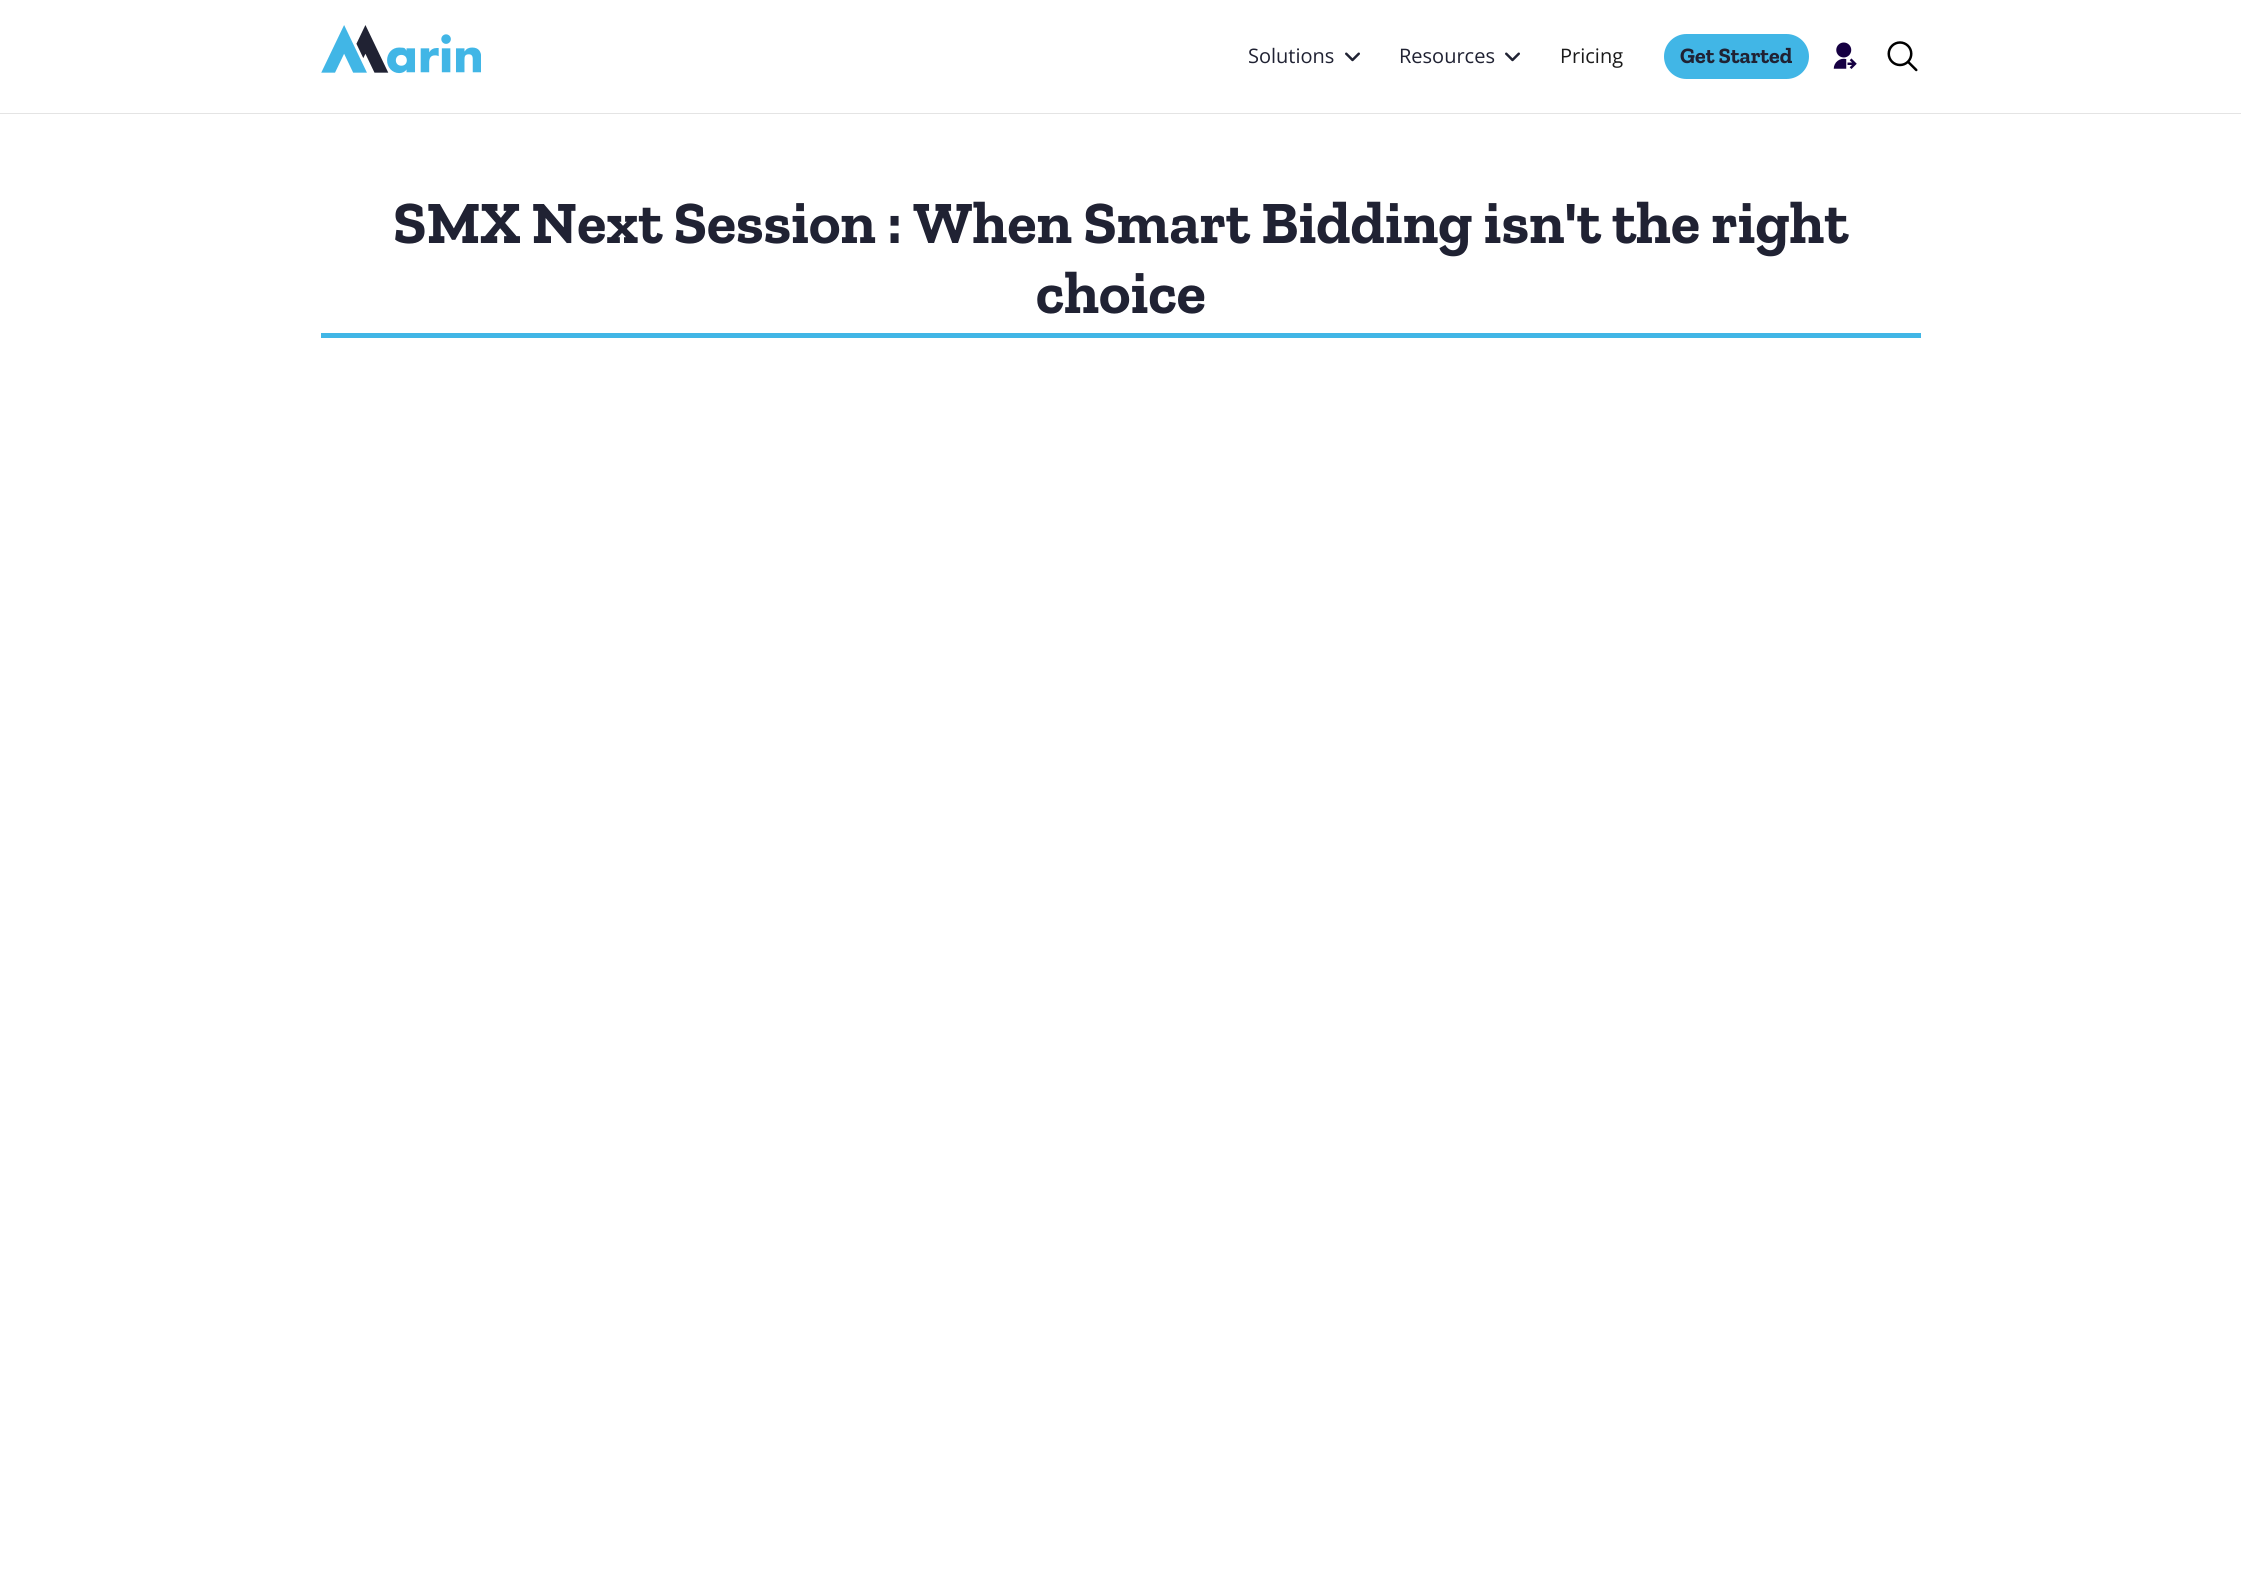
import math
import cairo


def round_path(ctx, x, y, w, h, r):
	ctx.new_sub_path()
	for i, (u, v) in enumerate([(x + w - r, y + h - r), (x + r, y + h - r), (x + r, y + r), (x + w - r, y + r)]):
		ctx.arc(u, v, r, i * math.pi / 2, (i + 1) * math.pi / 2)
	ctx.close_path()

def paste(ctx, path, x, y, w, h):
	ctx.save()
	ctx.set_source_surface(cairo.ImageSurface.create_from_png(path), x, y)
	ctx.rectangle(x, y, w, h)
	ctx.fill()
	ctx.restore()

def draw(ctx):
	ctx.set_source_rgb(1, 1, 1)
	ctx.paint()
	ctx.set_source_rgb(0.894, 0.894, 0.894)
	ctx.rectangle(0, 113, 2241, 1)
	ctx.fill()
	paste(ctx, 'media/1.png', 321, 25, 160, 49)
	ctx.select_font_face('Open Sans')
	ctx.set_font_size(20)
	ctx.set_source_rgb(0.125, 0.133, 0.2)
	ctx.move_to(1248, 63)
	ctx.show_text('Solutions')
	paste(ctx, 'media/2.png', 1345, 52, 15, 10)
	ctx.move_to(1399, 63)
	ctx.show_text('Resources')
	paste(ctx, 'media/2.png', 1505, 52, 15, 10)
	ctx.set_source_rgb(0.106, 0.106, 0.106)
	ctx.move_to(1560, 63)
	ctx.show_text('Pricing')
	ctx.set_source_rgb(0.255, 0.714, 0.902)
	round_path(ctx, 1666, 36, 141, 41, 20.5)
	ctx.fill_preserve()
	ctx.set_line_width(4)
	ctx.stroke()
	ctx.select_font_face('Zilla Slab', cairo.FONT_SLANT_NORMAL, cairo.FONT_WEIGHT_BOLD)
	ctx.set_font_size(22)
	ctx.set_source_rgb(0.125, 0.133, 0.2)
	ctx.move_to(1680, 63)
	ctx.show_text('Get Started')
	paste(ctx, 'media/3.png', 1833, 42, 24, 27)
	paste(ctx, 'media/4.png', 1887, 41, 31, 31)
	ctx.set_source_rgb(0.255, 0.714, 0.902)
	ctx.rectangle(321, 333, 1600, 5)
	ctx.fill()
	ctx.set_font_size(60)
	ctx.set_source_rgb(0.125, 0.133, 0.2)
	ctx.move_to(393, 243)
	ctx.show_text('SMX Next Session : When Smart Bidding isn\'t the right')
	ctx.move_to(1036, 313)
	ctx.show_text('choice')


surface = cairo.ImageSurface(cairo.FORMAT_RGB24, 2241, 1573)
ctx = cairo.Context(surface)
options = cairo.FontOptions()
options.set_hint_metrics(cairo.HINT_METRICS_OFF)
options.set_hint_style(cairo.HINT_STYLE_NONE)
ctx.set_font_options(options)
ctx.set_miter_limit(4)
draw(ctx)
surface.write_to_png('image.png')
